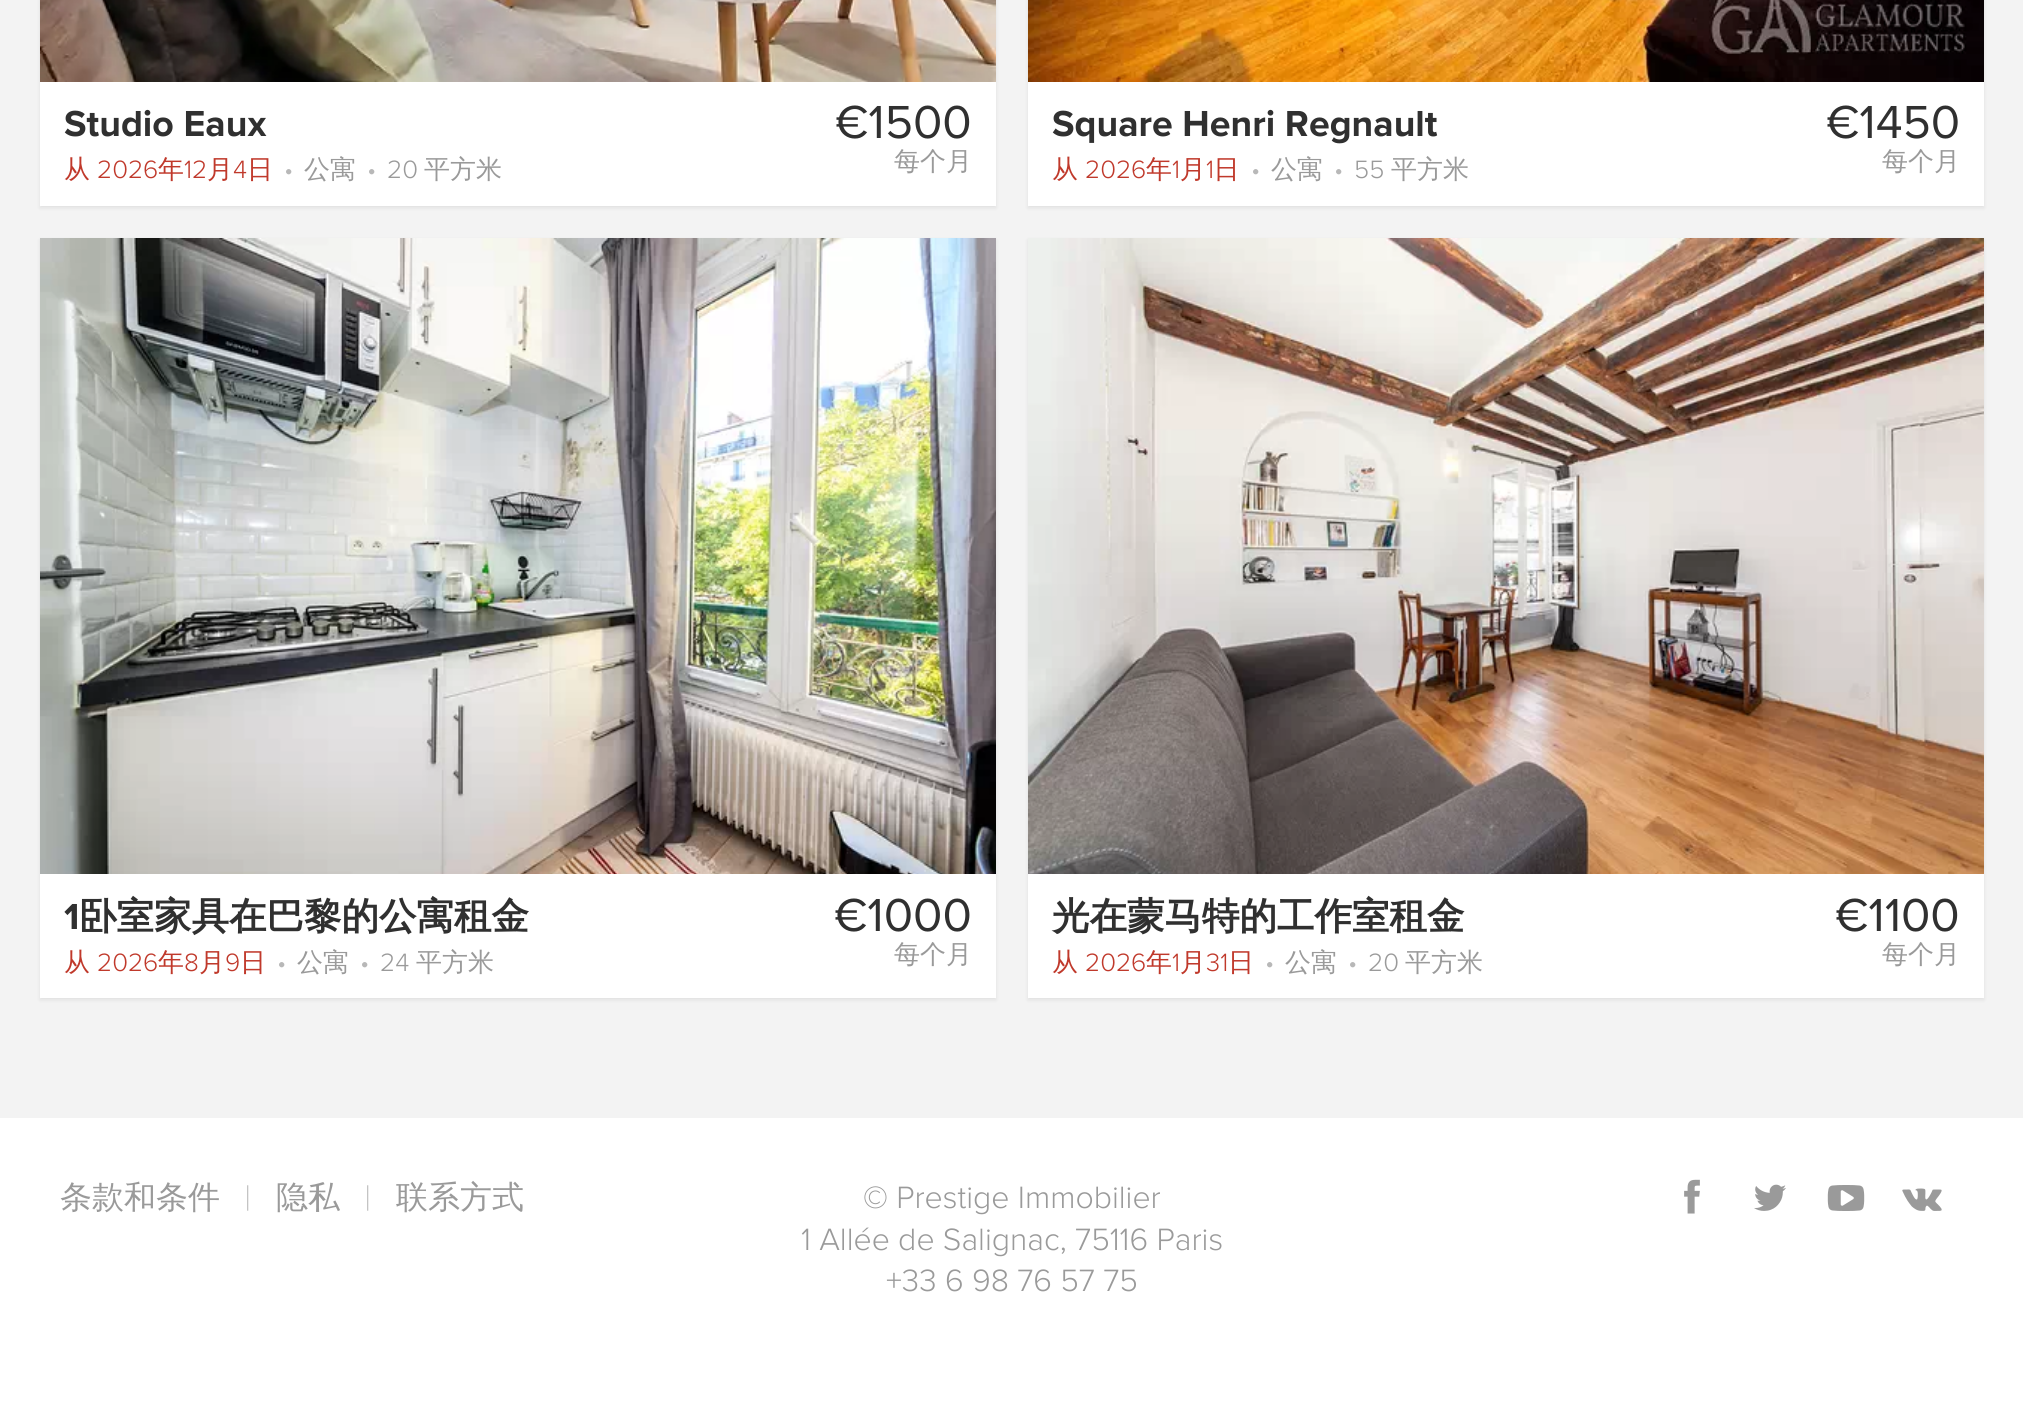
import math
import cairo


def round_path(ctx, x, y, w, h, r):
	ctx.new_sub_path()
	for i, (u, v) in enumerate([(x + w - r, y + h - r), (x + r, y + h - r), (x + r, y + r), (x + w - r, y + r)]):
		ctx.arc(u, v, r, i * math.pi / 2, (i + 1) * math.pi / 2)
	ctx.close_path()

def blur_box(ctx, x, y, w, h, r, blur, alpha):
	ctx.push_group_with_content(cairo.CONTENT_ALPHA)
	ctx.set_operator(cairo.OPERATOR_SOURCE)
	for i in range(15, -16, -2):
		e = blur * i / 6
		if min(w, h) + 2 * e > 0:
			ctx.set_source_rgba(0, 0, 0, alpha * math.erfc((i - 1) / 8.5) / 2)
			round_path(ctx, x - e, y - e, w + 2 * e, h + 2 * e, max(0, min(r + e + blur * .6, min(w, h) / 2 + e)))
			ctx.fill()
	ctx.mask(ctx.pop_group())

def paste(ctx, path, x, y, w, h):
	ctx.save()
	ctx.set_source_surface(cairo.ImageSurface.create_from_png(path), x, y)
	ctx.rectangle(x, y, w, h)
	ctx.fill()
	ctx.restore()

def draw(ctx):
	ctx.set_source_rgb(0.953, 0.953, 0.953)
	ctx.paint()
	ctx.set_source_rgb(0, 0, 0)
	blur_box(ctx, 40, -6, 956, 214, 0, 2, 0.08)
	ctx.set_source_rgb(1, 1, 1)
	ctx.rectangle(40, 82, 956, 124)
	ctx.fill()
	paste(ctx, 'media/1.png', 40, 0, 956, 82)
	ctx.select_font_face('Proxima Nova', cairo.FONT_SLANT_NORMAL, cairo.FONT_WEIGHT_BOLD)
	ctx.set_font_size(37.5)
	ctx.set_source_rgb(0.188, 0.188, 0.188)
	ctx.move_to(64, 136)
	ctx.show_text('Studio Eaux')
	ctx.select_font_face('WenQuanYi Zen Hei Medium')
	ctx.set_font_size(26)
	ctx.set_source_rgb(0.753, 0.224, 0.169)
	ctx.move_to(64, 178)
	ctx.show_text('从')
	ctx.select_font_face('Proxima Nova Light')
	ctx.move_to(97, 178)
	ctx.show_text('2026')
	ctx.select_font_face('WenQuanYi Zen Hei Medium')
	ctx.move_to(158, 178)
	ctx.show_text('年')
	ctx.select_font_face('Proxima Nova Light')
	ctx.move_to(184, 178)
	ctx.show_text('12')
	ctx.select_font_face('WenQuanYi Zen Hei Medium')
	ctx.move_to(207, 178)
	ctx.show_text('月')
	ctx.select_font_face('Proxima Nova Light')
	ctx.move_to(233, 178)
	ctx.show_text('4')
	ctx.select_font_face('WenQuanYi Zen Hei Medium')
	ctx.move_to(247, 178)
	ctx.show_text('日')
	ctx.select_font_face('Proxima Nova Light')
	ctx.set_source_rgb(0.722, 0.722, 0.722)
	ctx.move_to(284, 178)
	ctx.show_text('•')
	ctx.select_font_face('WenQuanYi Zen Hei Medium')
	ctx.set_source_rgb(0.604, 0.604, 0.604)
	ctx.move_to(304, 178)
	ctx.show_text('公寓')
	ctx.select_font_face('Proxima Nova Light')
	ctx.set_source_rgb(0.722, 0.722, 0.722)
	ctx.move_to(367, 178)
	ctx.show_text('•')
	ctx.set_source_rgb(0.604, 0.604, 0.604)
	ctx.move_to(387, 178)
	ctx.show_text('20')
	ctx.select_font_face('WenQuanYi Zen Hei Medium')
	ctx.move_to(424, 178)
	ctx.show_text('平方米')
	ctx.select_font_face('Proxima Nova')
	ctx.set_font_size(48)
	ctx.set_source_rgb(0.188, 0.188, 0.188)
	ctx.move_to(835, 138)
	ctx.show_text('€1500')
	ctx.select_font_face('WenQuanYi Zen Hei Medium')
	ctx.set_font_size(26)
	ctx.set_source_rgb(0.604, 0.604, 0.604)
	ctx.move_to(894, 170)
	ctx.show_text('每个月')
	ctx.set_source_rgb(0, 0, 0)
	blur_box(ctx, 1028, -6, 956, 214, 0, 2, 0.08)
	ctx.set_source_rgb(1, 1, 1)
	ctx.rectangle(1028, 82, 956, 124)
	ctx.fill()
	paste(ctx, 'media/2.png', 1028, 0, 956, 82)
	ctx.select_font_face('Proxima Nova', cairo.FONT_SLANT_NORMAL, cairo.FONT_WEIGHT_BOLD)
	ctx.set_font_size(37.5)
	ctx.set_source_rgb(0.188, 0.188, 0.188)
	ctx.move_to(1052, 136)
	ctx.show_text('Square Henri Regnault')
	ctx.select_font_face('WenQuanYi Zen Hei Medium')
	ctx.set_font_size(26)
	ctx.set_source_rgb(0.753, 0.224, 0.169)
	ctx.move_to(1052, 178)
	ctx.show_text('从')
	ctx.select_font_face('Proxima Nova Light')
	ctx.move_to(1085, 178)
	ctx.show_text('2026')
	ctx.select_font_face('WenQuanYi Zen Hei Medium')
	ctx.move_to(1146, 178)
	ctx.show_text('年 月 日')
	ctx.set_source_rgb(0.604, 0.604, 0.604)
	ctx.move_to(1271, 178)
	ctx.show_text('公寓')
	ctx.move_to(1391, 178)
	ctx.show_text('平方米')
	ctx.select_font_face('Proxima Nova Light')
	ctx.set_source_rgb(0.753, 0.224, 0.169)
	ctx.move_to(1172, 178)
	ctx.show_text('1')
	ctx.move_to(1206, 178)
	ctx.show_text('1')
	ctx.set_source_rgb(0.722, 0.722, 0.722)
	ctx.move_to(1251, 178)
	ctx.show_text('•')
	ctx.move_to(1334, 178)
	ctx.show_text('•')
	ctx.set_source_rgb(0.604, 0.604, 0.604)
	ctx.move_to(1354, 178)
	ctx.show_text('55')
	ctx.select_font_face('Proxima Nova')
	ctx.set_font_size(48)
	ctx.set_source_rgb(0.188, 0.188, 0.188)
	ctx.move_to(1826, 138)
	ctx.show_text('€1450')
	ctx.select_font_face('WenQuanYi Zen Hei Medium')
	ctx.set_font_size(26)
	ctx.set_source_rgb(0.604, 0.604, 0.604)
	ctx.move_to(1882, 170)
	ctx.show_text('每个月')
	ctx.set_source_rgb(0, 0, 0)
	blur_box(ctx, 40, 240, 956, 760, 0, 2, 0.08)
	ctx.set_source_rgb(1, 1, 1)
	ctx.rectangle(40, 874, 956, 124)
	ctx.fill()
	paste(ctx, 'media/3.png', 40, 238, 956, 636)
	ctx.select_font_face('Proxima Nova', cairo.FONT_SLANT_NORMAL, cairo.FONT_WEIGHT_BOLD)
	ctx.set_font_size(37.5)
	ctx.set_source_rgb(0.188, 0.188, 0.188)
	ctx.move_to(64, 929)
	ctx.show_text('1')
	ctx.select_font_face('WenQuanYi Zen Hei', cairo.FONT_SLANT_NORMAL, cairo.FONT_WEIGHT_BOLD)
	ctx.move_to(79, 929)
	ctx.show_text('卧室家具在巴黎的公寓租金')
	ctx.select_font_face('WenQuanYi Zen Hei Medium')
	ctx.set_font_size(26)
	ctx.set_source_rgb(0.753, 0.224, 0.169)
	ctx.move_to(64, 971)
	ctx.show_text('从')
	ctx.select_font_face('Proxima Nova Light')
	ctx.move_to(97, 971)
	ctx.show_text('2026')
	ctx.select_font_face('WenQuanYi Zen Hei Medium')
	ctx.move_to(158, 971)
	ctx.show_text('年')
	ctx.select_font_face('Proxima Nova Light')
	ctx.move_to(184, 971)
	ctx.show_text('8')
	ctx.select_font_face('WenQuanYi Zen Hei Medium')
	ctx.move_to(199, 971)
	ctx.show_text('月')
	ctx.select_font_face('Proxima Nova Light')
	ctx.move_to(225, 971)
	ctx.show_text('9')
	ctx.select_font_face('WenQuanYi Zen Hei Medium')
	ctx.move_to(240, 971)
	ctx.show_text('日')
	ctx.select_font_face('Proxima Nova Light')
	ctx.set_source_rgb(0.722, 0.722, 0.722)
	ctx.move_to(277, 971)
	ctx.show_text('•')
	ctx.select_font_face('WenQuanYi Zen Hei Medium')
	ctx.set_source_rgb(0.604, 0.604, 0.604)
	ctx.move_to(297, 971)
	ctx.show_text('公寓')
	ctx.select_font_face('Proxima Nova Light')
	ctx.set_source_rgb(0.722, 0.722, 0.722)
	ctx.move_to(360, 971)
	ctx.show_text('•')
	ctx.set_source_rgb(0.604, 0.604, 0.604)
	ctx.move_to(380, 971)
	ctx.show_text('24')
	ctx.select_font_face('WenQuanYi Zen Hei Medium')
	ctx.move_to(416, 971)
	ctx.show_text('平方米')
	ctx.select_font_face('Proxima Nova')
	ctx.set_font_size(48)
	ctx.set_source_rgb(0.188, 0.188, 0.188)
	ctx.move_to(834, 931)
	ctx.show_text('€1000')
	ctx.select_font_face('WenQuanYi Zen Hei Medium')
	ctx.set_font_size(26)
	ctx.set_source_rgb(0.604, 0.604, 0.604)
	ctx.move_to(894, 963)
	ctx.show_text('每个月')
	ctx.set_source_rgb(0, 0, 0)
	blur_box(ctx, 1028, 240, 956, 760, 0, 2, 0.08)
	ctx.set_source_rgb(1, 1, 1)
	ctx.rectangle(1028, 874, 956, 124)
	ctx.fill()
	paste(ctx, 'media/4.png', 1028, 238, 956, 636)
	ctx.select_font_face('WenQuanYi Zen Hei', cairo.FONT_SLANT_NORMAL, cairo.FONT_WEIGHT_BOLD)
	ctx.set_font_size(37.5)
	ctx.set_source_rgb(0.188, 0.188, 0.188)
	ctx.move_to(1052, 929)
	ctx.show_text('光在蒙马特的工作室租金')
	ctx.select_font_face('WenQuanYi Zen Hei Medium')
	ctx.set_font_size(26)
	ctx.set_source_rgb(0.753, 0.224, 0.169)
	ctx.move_to(1052, 971)
	ctx.show_text('从')
	ctx.select_font_face('Proxima Nova Light')
	ctx.move_to(1085, 971)
	ctx.show_text('2026')
	ctx.select_font_face('WenQuanYi Zen Hei Medium')
	ctx.move_to(1146, 971)
	ctx.show_text('年 月')
	ctx.move_to(1228, 971)
	ctx.show_text('日')
	ctx.set_source_rgb(0.604, 0.604, 0.604)
	ctx.move_to(1285, 971)
	ctx.show_text('公寓')
	ctx.move_to(1405, 971)
	ctx.show_text('平方米')
	ctx.select_font_face('Proxima Nova Light')
	ctx.set_source_rgb(0.753, 0.224, 0.169)
	ctx.move_to(1172, 971)
	ctx.show_text('1')
	ctx.move_to(1206, 971)
	ctx.show_text('31')
	ctx.set_source_rgb(0.722, 0.722, 0.722)
	ctx.move_to(1265, 971)
	ctx.show_text('•')
	ctx.move_to(1348, 971)
	ctx.show_text('•')
	ctx.set_source_rgb(0.604, 0.604, 0.604)
	ctx.move_to(1368, 971)
	ctx.show_text('20')
	ctx.select_font_face('Proxima Nova')
	ctx.set_font_size(48)
	ctx.set_source_rgb(0.188, 0.188, 0.188)
	ctx.move_to(1835, 931)
	ctx.show_text('€1100')
	ctx.select_font_face('WenQuanYi Zen Hei Medium')
	ctx.set_font_size(26)
	ctx.set_source_rgb(0.604, 0.604, 0.604)
	ctx.move_to(1882, 963)
	ctx.show_text('每个月')
	ctx.set_source_rgb(1, 1, 1)
	ctx.rectangle(0, 1118, 2023, 304)
	ctx.fill()
	ctx.set_font_size(32)
	ctx.set_source_rgb(0.604, 0.604, 0.604)
	ctx.move_to(60, 1208)
	ctx.show_text('条款和条件')
	ctx.select_font_face('Proxima Nova Thin')
	ctx.set_font_size(36)
	ctx.set_source_rgb(0.722, 0.722, 0.722)
	ctx.move_to(244, 1210)
	ctx.show_text('|')
	ctx.select_font_face('WenQuanYi Zen Hei Medium')
	ctx.set_font_size(32)
	ctx.set_source_rgb(0.604, 0.604, 0.604)
	ctx.move_to(276, 1208)
	ctx.show_text('隐私')
	ctx.select_font_face('Proxima Nova Thin')
	ctx.set_font_size(36)
	ctx.set_source_rgb(0.722, 0.722, 0.722)
	ctx.move_to(364, 1210)
	ctx.show_text('|')
	ctx.select_font_face('WenQuanYi Zen Hei Medium')
	ctx.set_font_size(32)
	ctx.set_source_rgb(0.604, 0.604, 0.604)
	ctx.move_to(396, 1208)
	ctx.show_text('联系方式')
	ctx.select_font_face('Proxima Nova Light')
	for x, y, s in [
		(863, 1208, '© Prestige Immobilier'),
		(801, 1250, '1 Allée de Salignac, 75116 Paris'),
		(886, 1291, '+33 6 98 76 57 75'),
	]:
		ctx.move_to(x, y)
		ctx.show_text(s)
	paste(ctx, 'media/5.png', 1684, 1179, 16, 35)
	paste(ctx, 'media/6.png', 1754, 1184, 32, 27)
	paste(ctx, 'media/7.png', 1827, 1185, 38, 26)
	paste(ctx, 'media/8.png', 1902, 1188, 40, 23)


surface = cairo.ImageSurface(cairo.FORMAT_RGB24, 2023, 1422)
ctx = cairo.Context(surface)
options = cairo.FontOptions()
options.set_hint_metrics(cairo.HINT_METRICS_OFF)
options.set_hint_style(cairo.HINT_STYLE_NONE)
ctx.set_font_options(options)
ctx.set_miter_limit(4)
draw(ctx)
surface.write_to_png('image.png')
